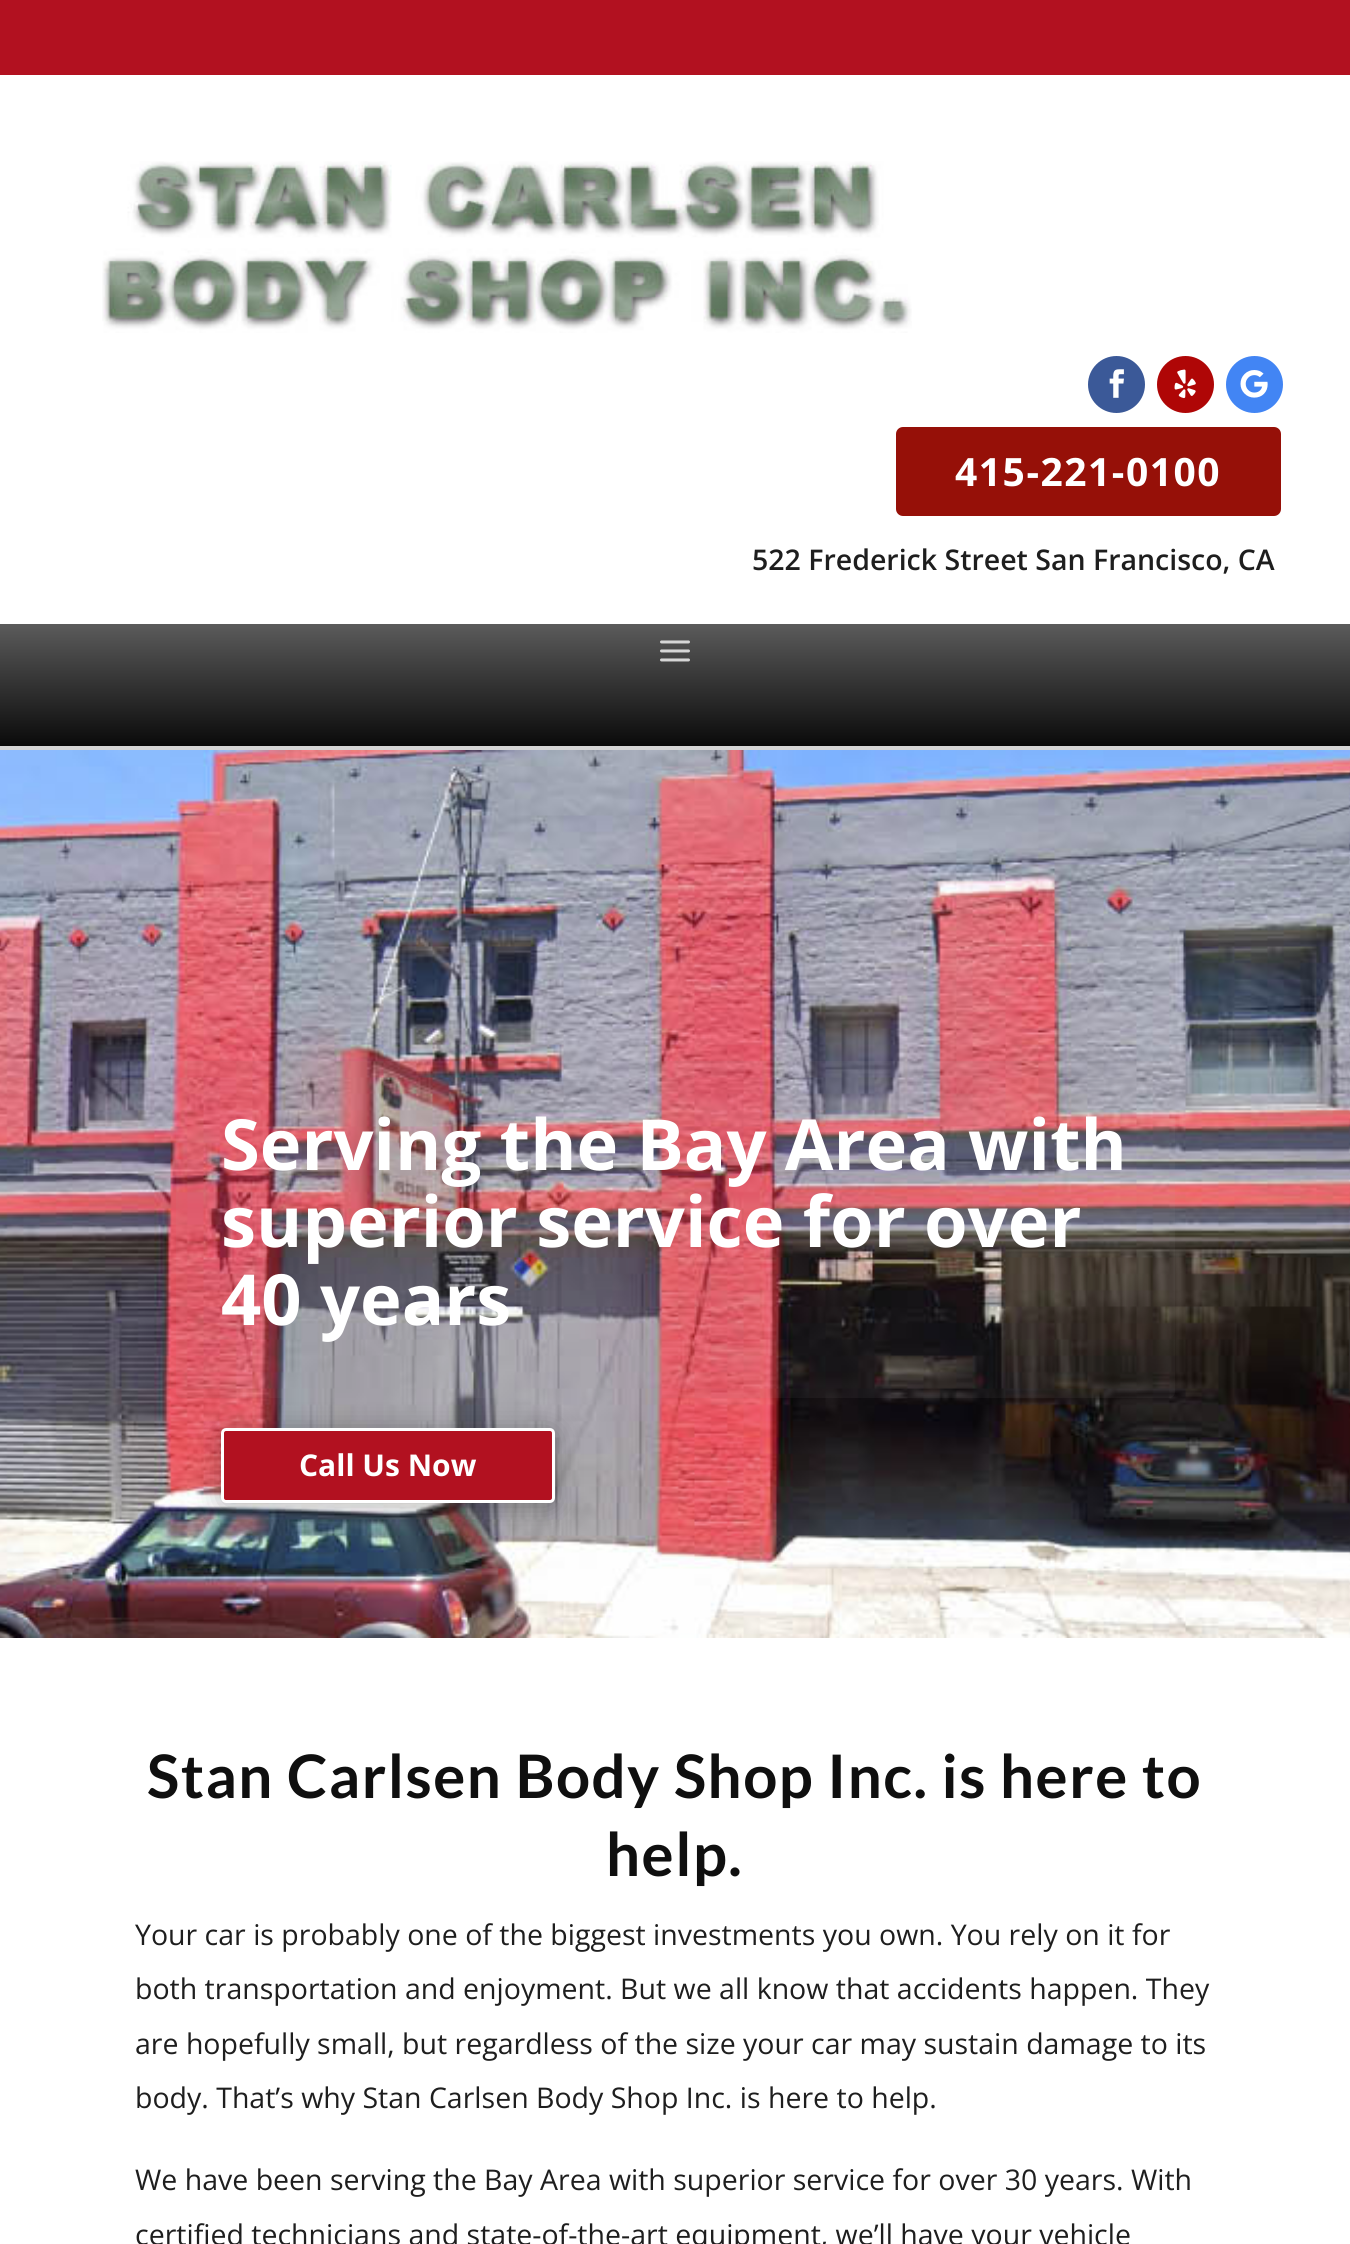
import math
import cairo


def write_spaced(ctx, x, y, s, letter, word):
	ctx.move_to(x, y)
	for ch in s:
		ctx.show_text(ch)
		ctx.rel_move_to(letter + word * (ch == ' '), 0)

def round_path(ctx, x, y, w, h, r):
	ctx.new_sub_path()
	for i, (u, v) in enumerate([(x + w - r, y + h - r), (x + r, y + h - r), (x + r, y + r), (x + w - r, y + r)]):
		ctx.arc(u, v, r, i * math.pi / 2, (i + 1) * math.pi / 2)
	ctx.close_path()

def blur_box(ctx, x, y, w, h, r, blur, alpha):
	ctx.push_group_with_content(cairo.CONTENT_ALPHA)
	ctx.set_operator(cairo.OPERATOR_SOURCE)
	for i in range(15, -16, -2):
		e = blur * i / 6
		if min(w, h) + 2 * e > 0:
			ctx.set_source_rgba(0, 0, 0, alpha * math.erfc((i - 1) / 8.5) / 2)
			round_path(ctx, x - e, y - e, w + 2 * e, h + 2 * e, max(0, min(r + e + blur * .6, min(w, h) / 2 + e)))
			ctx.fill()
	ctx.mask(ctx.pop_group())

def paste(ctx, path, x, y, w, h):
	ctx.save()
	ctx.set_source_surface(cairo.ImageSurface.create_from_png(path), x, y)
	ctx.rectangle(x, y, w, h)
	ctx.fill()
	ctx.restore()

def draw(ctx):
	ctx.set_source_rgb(1, 1, 1)
	ctx.paint()
	ctx.set_source_rgb(0.698, 0.067, 0.125)
	ctx.rectangle(0, 0, 1350, 75)
	ctx.fill()
	paste(ctx, 'media/1.png', 102, 161, 810, 172)
	ctx.set_source_rgb(0.231, 0.349, 0.596)
	ctx.arc(1116.5, 384.5, 28.5, 0, 2 * math.pi)
	ctx.fill()
	paste(ctx, 'media/2.png', 1109, 369, 15, 29)
	ctx.set_source_rgb(0.686, 0.024, 0.024)
	ctx.arc(1185.5, 384.5, 28.5, 0, 2 * math.pi)
	ctx.fill()
	paste(ctx, 'media/3.png', 1174, 369, 22, 30)
	ctx.set_source_rgb(0.259, 0.522, 0.957)
	ctx.arc(1254.5, 384.5, 28.5, 0, 2 * math.pi)
	ctx.fill()
	paste(ctx, 'media/4.png', 1240, 370, 28, 28)
	ctx.set_source_rgb(0.588, 0.063, 0.035)
	round_path(ctx, 895, 426, 387, 91, 8)
	ctx.fill_preserve()
	ctx.set_source_rgb(1, 1, 1)
	ctx.stroke()
	ctx.select_font_face('Open Sans', cairo.FONT_SLANT_NORMAL, cairo.FONT_WEIGHT_BOLD)
	ctx.set_font_size(39)
	write_spaced(ctx, 955, 486, '415-221-0100', 1.5, 0)
	ctx.select_font_face('Open Sans SemiBold')
	ctx.set_font_size(28.5)
	ctx.set_source_rgb(0.118, 0.118, 0.118)
	ctx.move_to(752, 570)
	ctx.show_text('522 Frederick Street San Francisco, CA')
	gradient = cairo.LinearGradient(675, 624, 675, 746)
	gradient.add_color_stop_rgba(0, 0.357, 0.357, 0.357, 1)
	gradient.add_color_stop_rgba(1, 0.039, 0.039, 0.039, 1)
	ctx.set_source(gradient)
	ctx.rectangle(0, 624, 1350, 122)
	ctx.fill()
	ctx.set_source_rgb(0.839, 0.839, 0.839)
	ctx.rectangle(0, 746, 1350, 4)
	ctx.fill()
	paste(ctx, 'media/5.png', 660, 640, 30, 22)
	paste(ctx, 'media/6.png', 0, 750, 1350, 888)
	ctx.set_source_rgba(0.639, 0.639, 0.639, 0.07)
	round_path(ctx, 176, 1061, 999, 337, 6)
	ctx.fill()
	ctx.select_font_face('Open Sans', cairo.FONT_SLANT_NORMAL, cairo.FONT_WEIGHT_BOLD)
	ctx.set_font_size(70.5)
	ctx.set_source_rgb(1, 1, 1)
	for x, y, s in [
		(221, 1170, 'Serving the Bay Area with'),
		(221, 1247, 'superior service for over'),
		(221, 1325, '40 years'),
	]:
		ctx.move_to(x, y)
		ctx.show_text(s)
	ctx.set_source_rgb(0, 0, 0)
	blur_box(ctx, 221, 1431, 334, 75, 5, 13.5, 0.3)
	ctx.set_source_rgb(0.698, 0.067, 0.125)
	round_path(ctx, 222.5, 1429.5, 331, 72, 3.5)
	ctx.fill_preserve()
	ctx.set_source_rgb(1, 1, 1)
	ctx.set_line_width(3)
	ctx.stroke()
	ctx.set_font_size(30)
	ctx.move_to(299, 1476)
	ctx.show_text('Call Us Now')
	ctx.select_font_face('Lato', cairo.FONT_SLANT_NORMAL, cairo.FONT_WEIGHT_BOLD)
	ctx.set_font_size(60)
	ctx.set_source_rgb(0.059, 0.059, 0.059)
	write_spaced(ctx, 147, 1798, 'Stan Carlsen Body Shop Inc. is here to', 1.5, 0)
	write_spaced(ctx, 606, 1876, 'help.', 1.5, 0)
	ctx.select_font_face('Open Sans')
	ctx.set_font_size(28.5)
	ctx.set_source_rgb(0.118, 0.118, 0.118)
	for x, y, s in [
		(135, 1945, 'Your car is probably one of the biggest investments you own. You rely on it for'),
		(135, 1999, 'both transportation and enjoyment. But we all know that accidents happen. They'),
		(135, 2054, 'are hopefully small, but regardless of the size your car may sustain damage to its'),
		(135, 2108, 'body. That’s why Stan Carlsen Body Shop Inc. is here to help.'),
		(135, 2190, 'We have been serving the Bay Area with superior service for over 30 years. With'),
		(135, 2245, 'certified technicians and state-of-the-art equipment, we’ll have your vehicle'),
	]:
		ctx.move_to(x, y)
		ctx.show_text(s)


surface = cairo.ImageSurface(cairo.FORMAT_RGB24, 1350, 2244)
ctx = cairo.Context(surface)
options = cairo.FontOptions()
options.set_hint_metrics(cairo.HINT_METRICS_OFF)
options.set_hint_style(cairo.HINT_STYLE_NONE)
ctx.set_font_options(options)
ctx.set_miter_limit(4)
draw(ctx)
surface.write_to_png('image.png')
